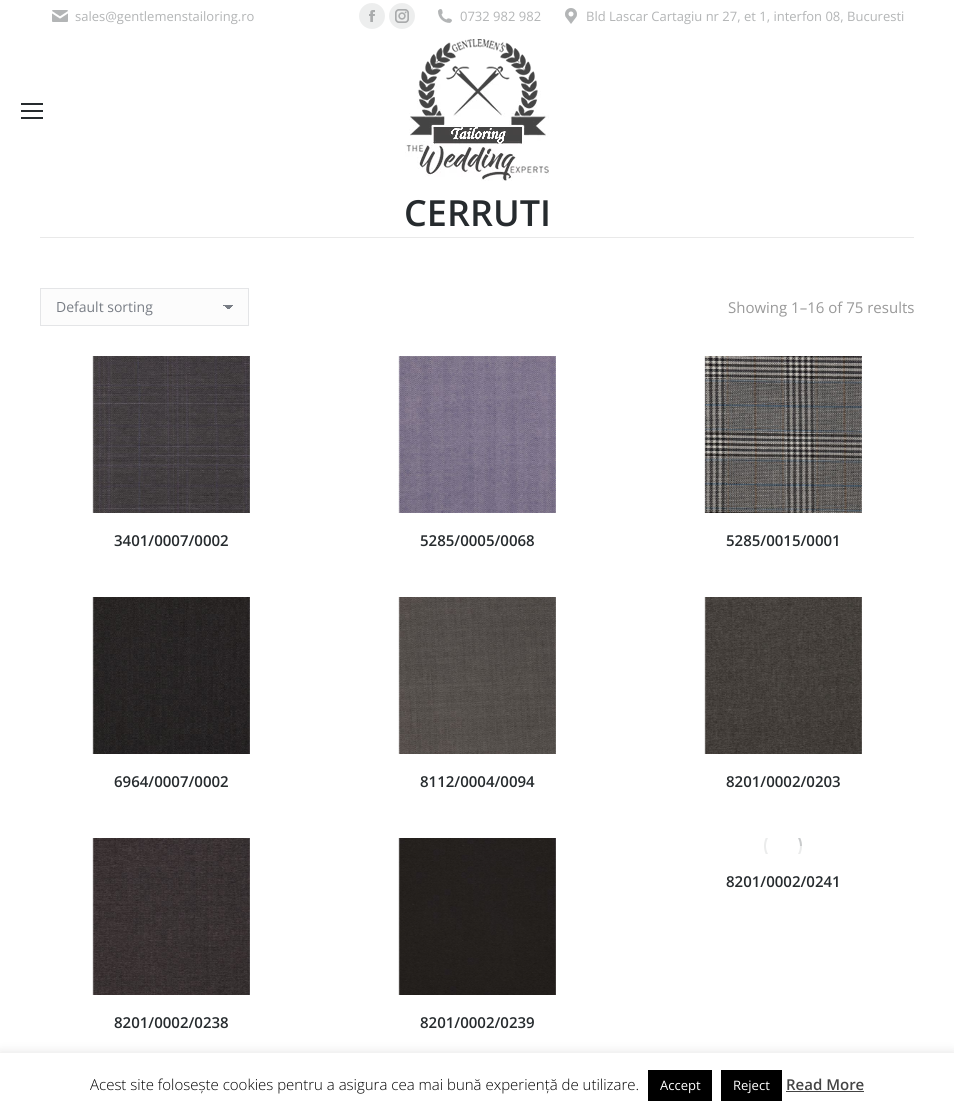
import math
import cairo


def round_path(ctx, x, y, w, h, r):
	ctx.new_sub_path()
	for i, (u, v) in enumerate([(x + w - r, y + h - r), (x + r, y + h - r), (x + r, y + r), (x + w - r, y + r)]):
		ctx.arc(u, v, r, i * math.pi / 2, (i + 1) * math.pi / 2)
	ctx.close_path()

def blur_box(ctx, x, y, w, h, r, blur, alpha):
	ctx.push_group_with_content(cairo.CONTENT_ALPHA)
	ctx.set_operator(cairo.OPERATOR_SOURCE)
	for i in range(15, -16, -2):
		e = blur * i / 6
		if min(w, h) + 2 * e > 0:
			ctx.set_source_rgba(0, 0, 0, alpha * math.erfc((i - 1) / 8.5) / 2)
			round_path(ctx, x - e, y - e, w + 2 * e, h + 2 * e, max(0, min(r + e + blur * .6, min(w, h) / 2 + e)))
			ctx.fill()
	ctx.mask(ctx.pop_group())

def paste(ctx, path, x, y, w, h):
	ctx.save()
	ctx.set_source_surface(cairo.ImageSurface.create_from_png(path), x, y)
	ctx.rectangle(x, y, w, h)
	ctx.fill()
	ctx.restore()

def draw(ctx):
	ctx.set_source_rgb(1, 1, 1)
	ctx.paint()
	paste(ctx, 'media/1.png', 52, 10, 16, 12)
	ctx.select_font_face('Open Sans')
	ctx.set_font_size(13)
	ctx.set_source_rgb(0.702, 0.71, 0.714)
	ctx.move_to(75, 21)
	ctx.show_text('sales@gentlemenstailoring.ro')
	ctx.set_source_rgb(0.929, 0.933, 0.933)
	ctx.new_path()
	ctx.arc(372, 16, 13, 0, 2 * math.pi)
	ctx.fill()
	paste(ctx, 'media/2.png', 369, 10, 6, 12)
	ctx.arc(402, 16, 13, 0, 2 * math.pi)
	ctx.fill()
	paste(ctx, 'media/3.png', 395, 9, 14, 14)
	paste(ctx, 'media/4.png', 438, 9, 14, 14)
	ctx.set_source_rgb(0.702, 0.71, 0.714)
	ctx.move_to(460, 21)
	ctx.show_text('0732 982 982')
	paste(ctx, 'media/5.png', 565, 8, 12, 16)
	ctx.move_to(586, 21)
	ctx.show_text('Bld Lascar Cartagiu nr 27, et 1, interfon 08, Bucuresti')
	ctx.set_source_rgb(0.149, 0.169, 0.18)
	ctx.rectangle(21, 103, 22, 2)
	ctx.rectangle(21, 110, 22, 2)
	ctx.rectangle(21, 117, 22, 2)
	ctx.fill()
	paste(ctx, 'media/6.png', 405, 39, 144, 142)
	ctx.select_font_face('Open Sans SemiBold')
	ctx.set_font_size(36)
	ctx.move_to(404, 226)
	ctx.show_text('CERRUTI')
	ctx.set_source_rgb(0.914, 0.914, 0.914)
	ctx.rectangle(40, 237, 874, 1)
	ctx.fill()
	ctx.set_source_rgb(0.988, 0.988, 0.988)
	ctx.rectangle(41, 289, 207, 36)
	ctx.fill()
	gradient = cairo.LinearGradient(228, 305, 233, 310)
	gradient.add_color_stop_rgba(0.5, 0.471, 0.49, 0.522, 1)
	gradient.add_color_stop_rgba(0.5, 0.988, 0.988, 0.988, 1)
	ctx.set_source(gradient)
	ctx.rectangle(228, 305, 5, 4)
	ctx.fill()
	gradient = cairo.LinearGradient(223, 310, 228, 305)
	gradient.add_color_stop_rgba(0.5, 0.988, 0.988, 0.988, 1)
	gradient.add_color_stop_rgba(0.5, 0.471, 0.49, 0.522, 1)
	ctx.set_source(gradient)
	ctx.rectangle(223, 305, 5, 4)
	ctx.fill()
	ctx.rectangle(40.5, 288.5, 208, 37)
	ctx.set_source_rgb(0.894, 0.898, 0.906)
	ctx.set_line_width(1)
	ctx.stroke()
	ctx.select_font_face('Open Sans')
	ctx.set_font_size(14)
	ctx.set_source_rgb(0.471, 0.49, 0.522)
	ctx.move_to(56, 312)
	ctx.show_text('Default sorting')
	ctx.set_font_size(15)
	ctx.set_source_rgb(0.6, 0.6, 0.6)
	ctx.move_to(728, 313)
	ctx.show_text('Showing 1–16 of 75 results')
	paste(ctx, 'media/7.png', 92, 356, 158, 157)
	ctx.select_font_face('Open Sans SemiBold')
	ctx.set_source_rgb(0.149, 0.169, 0.18)
	ctx.move_to(114, 546)
	ctx.show_text('3401/0007/0002')
	paste(ctx, 'media/8.png', 398, 356, 158, 157)
	ctx.move_to(420, 546)
	ctx.show_text('5285/0005/0068')
	paste(ctx, 'media/9.png', 704, 356, 158, 157)
	ctx.move_to(726, 546)
	ctx.show_text('5285/0015/0001')
	paste(ctx, 'media/10.png', 92, 597, 158, 157)
	ctx.move_to(114, 787)
	ctx.show_text('6964/0007/0002')
	paste(ctx, 'media/11.png', 398, 597, 158, 157)
	ctx.move_to(420, 787)
	ctx.show_text('8112/0004/0094')
	paste(ctx, 'media/12.png', 704, 597, 158, 157)
	ctx.move_to(726, 787)
	ctx.show_text('8201/0002/0203')
	ctx.save()
	ctx.rectangle(764, 838, 38, 16)
	ctx.clip()
	ctx.arc(783, 846, 18, 0, 2 * math.pi)
	ctx.set_source_rgb(0.918, 0.922, 0.922)
	ctx.set_line_width(2)
	ctx.stroke()
	ctx.new_path()
	ctx.move_to(801, 846)
	ctx.curve_to(801, 836, 793, 828, 783, 828)
	ctx.set_source_rgba(0.404, 0.42, 0.427, 0.25)
	ctx.stroke()
	ctx.restore()
	ctx.move_to(726, 887)
	ctx.show_text('8201/0002/0241')
	paste(ctx, 'media/13.png', 92, 838, 158, 157)
	ctx.move_to(114, 1028)
	ctx.show_text('8201/0002/0238')
	paste(ctx, 'media/14.png', 398, 838, 158, 157)
	ctx.move_to(420, 1028)
	ctx.show_text('8201/0002/0239')
	ctx.set_source_rgb(0.675, 0.671, 0.671)
	blur_box(ctx, 0, 1052, 954, 60, 0, 5, 0.3)
	ctx.set_source_rgb(1, 1, 1)
	ctx.rectangle(0, 1053, 954, 60)
	ctx.fill()
	ctx.select_font_face('Open Sans Light')
	ctx.set_source_rgb(0, 0, 0)
	ctx.move_to(90, 1090)
	ctx.show_text('Acest site folosește cookies pentru a asigura cea mai bună experiență de utilizare.')
	ctx.rectangle(648, 1070, 64, 31)
	ctx.fill()
	ctx.select_font_face('Open Sans')
	ctx.set_font_size(13)
	ctx.set_source_rgb(1, 1, 1)
	ctx.move_to(660, 1090)
	ctx.show_text('Accept')
	ctx.set_source_rgb(0, 0, 0)
	ctx.rectangle(721, 1070, 61, 31)
	ctx.fill()
	ctx.set_source_rgb(1, 1, 1)
	ctx.move_to(733, 1090)
	ctx.show_text('Reject')
	ctx.select_font_face('Open Sans SemiBold')
	ctx.set_font_size(15)
	ctx.set_source_rgb(0.267, 0.267, 0.267)
	ctx.move_to(786, 1090)
	ctx.show_text('Read More')
	ctx.rectangle(786, 1091, 78, 1)
	ctx.fill()


surface = cairo.ImageSurface(cairo.FORMAT_RGB24, 954, 1113)
ctx = cairo.Context(surface)
options = cairo.FontOptions()
options.set_hint_metrics(cairo.HINT_METRICS_OFF)
options.set_hint_style(cairo.HINT_STYLE_NONE)
ctx.set_font_options(options)
ctx.set_miter_limit(4)
draw(ctx)
surface.write_to_png('image.png')
